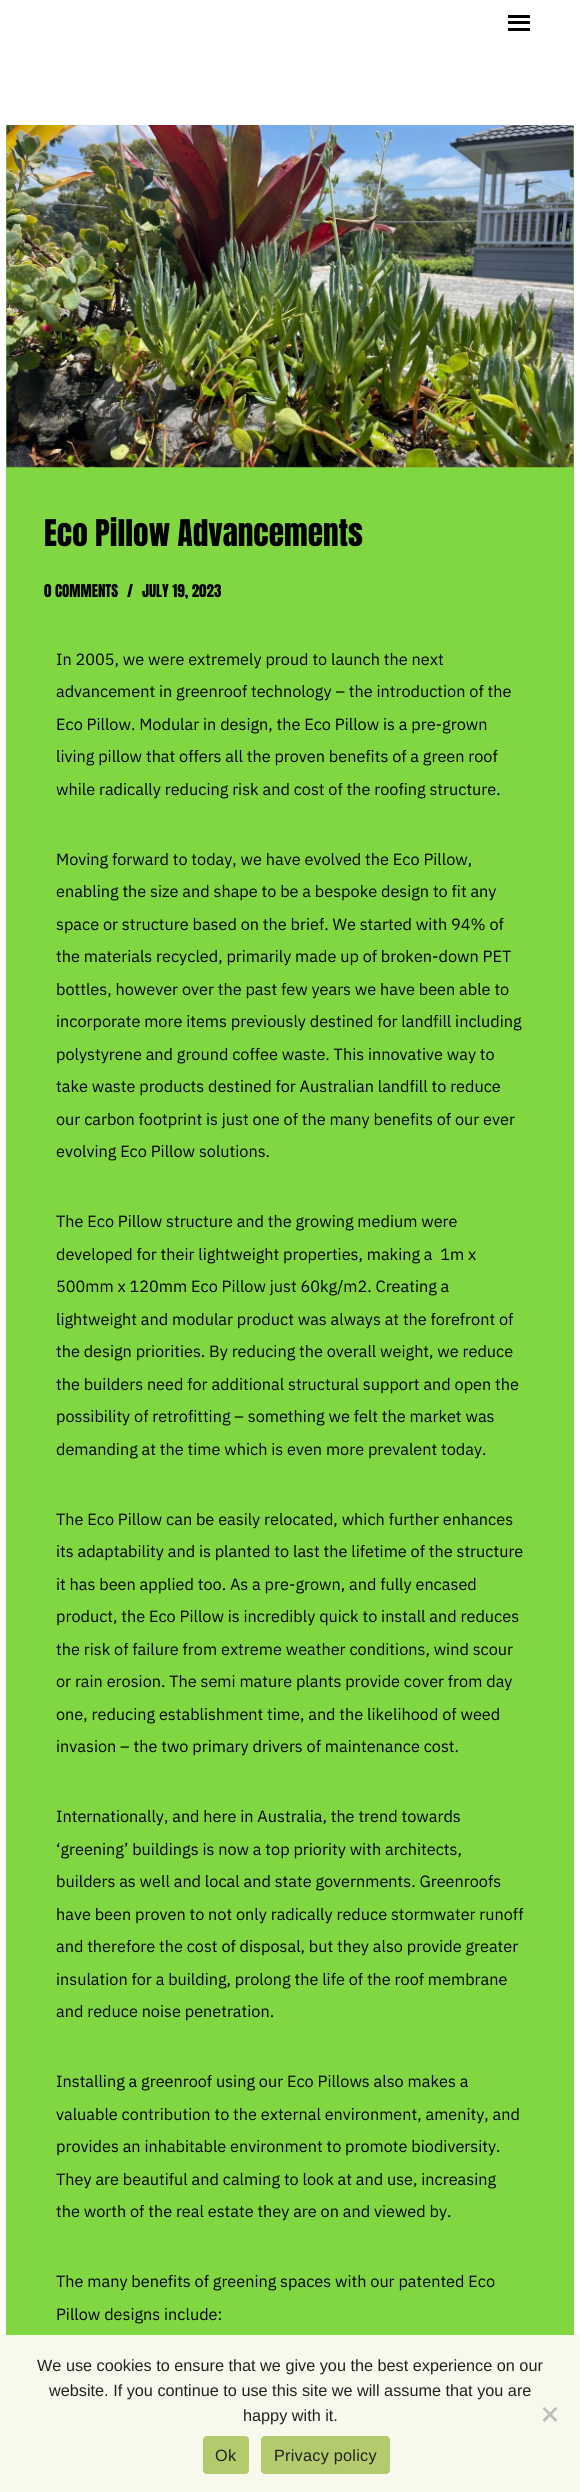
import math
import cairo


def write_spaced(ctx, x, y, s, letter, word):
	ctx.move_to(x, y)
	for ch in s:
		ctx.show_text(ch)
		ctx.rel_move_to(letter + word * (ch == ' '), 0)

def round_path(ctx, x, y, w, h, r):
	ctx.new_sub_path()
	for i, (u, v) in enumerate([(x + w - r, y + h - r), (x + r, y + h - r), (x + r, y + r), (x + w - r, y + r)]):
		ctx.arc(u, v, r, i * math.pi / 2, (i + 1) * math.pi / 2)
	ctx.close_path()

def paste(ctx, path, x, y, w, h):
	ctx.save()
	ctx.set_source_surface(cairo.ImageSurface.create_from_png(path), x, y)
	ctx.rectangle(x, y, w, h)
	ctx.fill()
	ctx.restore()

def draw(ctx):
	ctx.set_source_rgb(1, 1, 1)
	ctx.paint()
	ctx.set_source_rgb(0, 0, 0)
	ctx.rectangle(508, 15, 22, 3)
	ctx.rectangle(508, 21, 22, 3)
	ctx.rectangle(508, 28, 22, 3)
	ctx.fill()
	ctx.set_source_rgb(0.506, 0.843, 0.259)
	ctx.rectangle(6, 125, 568, 2210)
	ctx.fill()
	paste(ctx, 'media/1.png', 6, 125, 568, 343)
	ctx.select_font_face('Anton')
	ctx.set_font_size(31.25)
	ctx.set_source_rgb(0, 0, 0)
	ctx.move_to(44, 546)
	ctx.show_text('Eco Pillow Advancements')
	ctx.set_font_size(15)
	for x, y, s in [
		(44, 597, '0 COMMENTS'),
		(127, 597, '/'),
		(142, 597, 'JULY 19, 2023'),
	]:
		ctx.move_to(x, y)
		ctx.show_text(s)
	ctx.select_font_face('IBM Plex Sans')
	ctx.set_font_size(16.25)
	for x, y, s in [
		(56, 665, 'In 2005, we were extremely proud to launch the next'),
		(56, 697, 'advancement in greenroof technology – the introduction of the'),
		(56, 730, 'Eco Pillow. Modular in design, the Eco Pillow is a pre-grown'),
		(56, 762, 'living pillow that offers all the proven benefits of a green roof'),
		(56, 795, 'while radically reducing risk and cost of the roofing structure.'),
		(56, 865, 'Moving forward to today, we have evolved the Eco Pillow,'),
		(56, 897, 'enabling the size and shape to be a bespoke design to fit any'),
		(56, 930, 'space or structure based on the brief. We started with 94% of'),
		(56, 962, 'the materials recycled, primarily made up of broken-down PET'),
		(56, 995, 'bottles, however over the past few years we have been able to'),
		(56, 1027, 'incorporate more items previously destined for landfill including'),
		(56, 1060, 'polystyrene and ground coffee waste. This innovative way to'),
		(56, 1092, 'take waste products destined for Australian landfill to reduce'),
		(56, 1125, 'our carbon footprint is just one of the many benefits of our ever'),
		(56, 1157, 'evolving Eco Pillow solutions.'),
		(56, 1227, 'The Eco Pillow structure and the growing medium were'),
		(56, 1260, 'developed for their lightweight properties, making a  1m x'),
		(56, 1292, '500mm x 120mm Eco Pillow just 60kg/m2. Creating a'),
		(56, 1325, 'lightweight and modular product was always at the forefront of'),
		(56, 1357, 'the design priorities. By reducing the overall weight, we reduce'),
		(56, 1390, 'the builders need for additional structural support and open the'),
		(56, 1422, 'possibility of retrofitting – something we felt the market was'),
		(56, 1455, 'demanding at the time which is even more prevalent today.'),
		(56, 1525, 'The Eco Pillow can be easily relocated, which further enhances'),
		(56, 1557, 'its adaptability and is planted to last the lifetime of the structure'),
		(56, 1590, 'it has been applied too. As a pre-grown, and fully encased'),
		(56, 1622, 'product, the Eco Pillow is incredibly quick to install and reduces'),
		(56, 1655, 'the risk of failure from extreme weather conditions, wind scour'),
		(56, 1687, 'or rain erosion. The semi mature plants provide cover from day'),
		(56, 1720, 'one, reducing establishment time, and the likelihood of weed'),
		(56, 1752, 'invasion – the two primary drivers of maintenance cost.'),
		(56, 1822, 'Internationally, and here in Australia, the trend towards'),
		(56, 1855, '‘greening’ buildings is now a top priority with architects,'),
		(56, 1887, 'builders as well and local and state governments. Greenroofs'),
		(56, 1920, 'have been proven to not only radically reduce stormwater runoff'),
		(56, 1952, 'and therefore the cost of disposal, but they also provide greater'),
		(56, 1985, 'insulation for a building, prolong the life of the roof membrane'),
		(56, 2017, 'and reduce noise penetration.'),
		(56, 2087, 'Installing a greenroof using our Eco Pillows also makes a'),
		(56, 2120, 'valuable contribution to the external environment, amenity, and'),
		(56, 2152, 'provides an inhabitable environment to promote biodiversity.'),
		(56, 2185, 'They are beautiful and calming to look at and use, increasing'),
		(56, 2217, 'the worth of the real estate they are on and viewed by.'),
		(56, 2287, 'The many benefits of greening spaces with our patented Eco'),
		(56, 2320, 'Pillow designs include:'),
	]:
		ctx.move_to(x, y)
		ctx.show_text(s)
	ctx.set_source_rgb(0.965, 0.976, 0.922)
	ctx.rectangle(0, 2335, 580, 157)
	ctx.fill()
	ctx.select_font_face('Liberation Sans')
	ctx.set_source_rgb(0.129, 0.129, 0.125)
	for x, y, s in [
		(37, 2371, 'We use cookies to ensure that we give you the best experience on our'),
		(49, 2396, 'website. If you continue to use this site we will assume that you are'),
		(243, 2421, 'happy with it.'),
	]:
		ctx.move_to(x, y)
		ctx.show_text(s)
	ctx.set_source_rgb(0.733, 0.741, 0.714)
	ctx.new_path()
	ctx.move_to(555.5, 2407)
	ctx.line_to(557.5, 2408.5)
	ctx.line_to(544.5, 2422)
	ctx.line_to(542.5, 2420)
	ctx.close_path()
	ctx.fill()
	ctx.new_path()
	ctx.move_to(542.5, 2408.5)
	ctx.line_to(544.5, 2407)
	ctx.line_to(557.5, 2420)
	ctx.line_to(555.5, 2422)
	ctx.close_path()
	ctx.fill()
	ctx.set_source_rgb(0.706, 0.796, 0.427)
	round_path(ctx, 203, 2436, 46, 38, 4)
	ctx.fill()
	ctx.set_source_rgb(0.129, 0.129, 0.125)
	write_spaced(ctx, 215, 2461, 'Ok', 0.25, 0)
	ctx.set_source_rgb(0.706, 0.796, 0.427)
	round_path(ctx, 261, 2436, 129, 38, 4)
	ctx.fill()
	ctx.set_source_rgb(0.129, 0.129, 0.125)
	write_spaced(ctx, 274, 2461, 'Privacy policy', 0.25, 0)


surface = cairo.ImageSurface(cairo.FORMAT_RGB24, 580, 2492)
ctx = cairo.Context(surface)
options = cairo.FontOptions()
options.set_hint_metrics(cairo.HINT_METRICS_OFF)
options.set_hint_style(cairo.HINT_STYLE_NONE)
ctx.set_font_options(options)
ctx.set_miter_limit(4)
draw(ctx)
surface.write_to_png('image.png')
